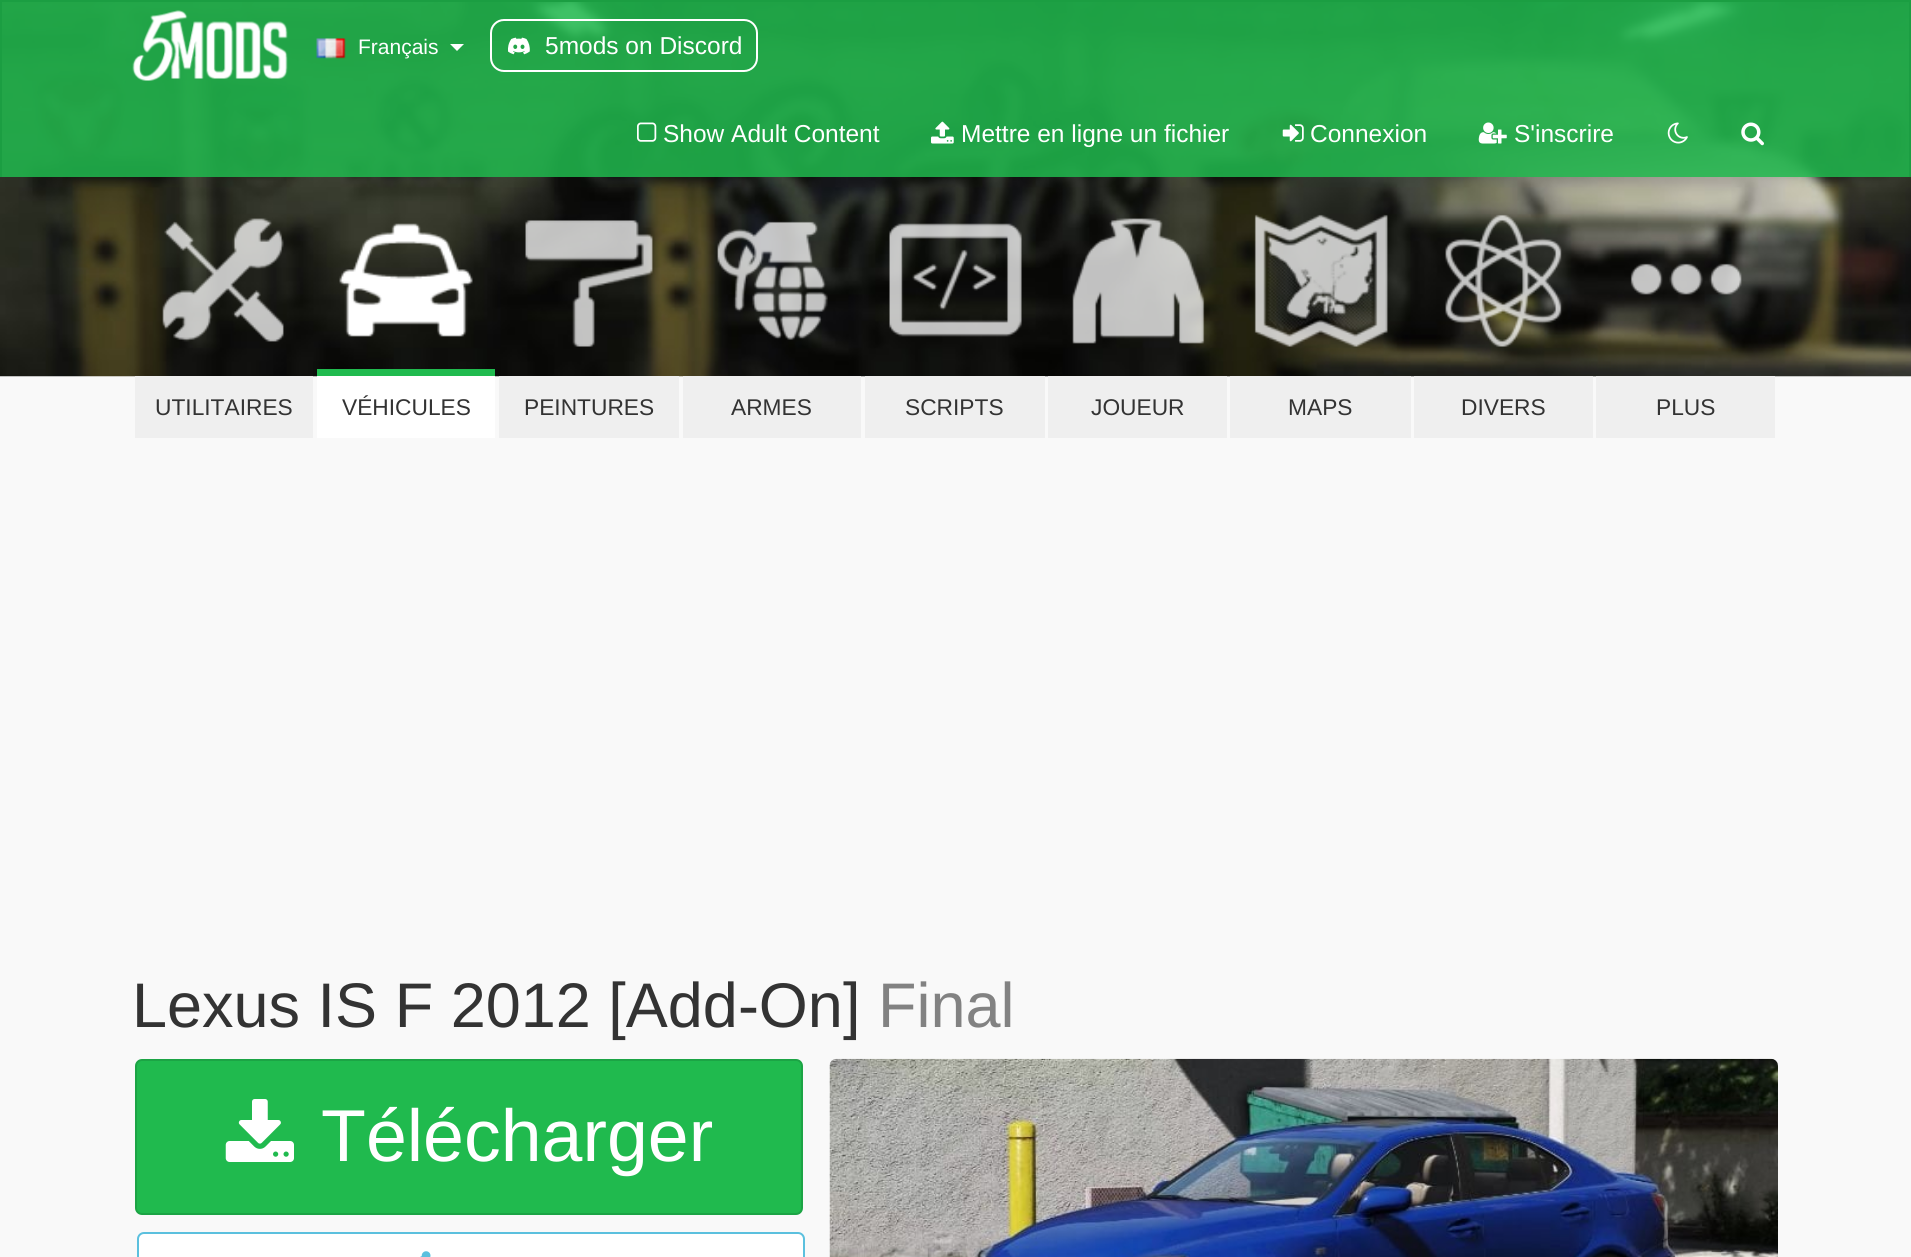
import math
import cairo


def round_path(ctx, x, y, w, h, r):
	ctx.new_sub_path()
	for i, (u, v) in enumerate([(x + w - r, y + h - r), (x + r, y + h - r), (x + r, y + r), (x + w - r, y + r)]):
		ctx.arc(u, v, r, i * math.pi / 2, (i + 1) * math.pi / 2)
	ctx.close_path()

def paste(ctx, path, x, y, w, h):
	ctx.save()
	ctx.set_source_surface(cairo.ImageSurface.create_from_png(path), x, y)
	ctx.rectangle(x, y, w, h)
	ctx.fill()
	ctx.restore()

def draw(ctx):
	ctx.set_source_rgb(0.976, 0.976, 0.976)
	ctx.paint()
	paste(ctx, 'media/10.png', 0, 2, 1911, 375)
	ctx.set_source_rgba(0.125, 0.729, 0.306, 0.85)
	ctx.rectangle(2, 2, 1907, 175)
	ctx.fill()
	ctx.set_source_rgb(0.106, 0.62, 0.259)
	ctx.rectangle(0, 0, 1911, 2)
	ctx.rectangle(1909, 0, 2, 177)
	ctx.rectangle(0, 0, 2, 177)
	ctx.fill()
	paste(ctx, 'media/1.png', 132, 10, 156, 71)
	paste(ctx, 'media/2.png', 316, 38, 30, 21)
	ctx.select_font_face('Liberation Sans')
	ctx.set_font_size(21)
	ctx.set_source_rgb(1, 1, 1)
	ctx.move_to(358, 54)
	ctx.show_text('Français')
	ctx.new_path()
	ctx.move_to(450, 44)
	ctx.line_to(464, 44)
	ctx.line_to(457, 51)
	ctx.close_path()
	ctx.fill()
	round_path(ctx, 491, 20, 266, 51, 13)
	ctx.stroke()
	paste(ctx, 'media/3.png', 508, 37, 22, 18)
	ctx.set_font_size(24.5)
	ctx.move_to(545, 54)
	ctx.show_text('5mods on Discord')
	paste(ctx, 'media/4.png', 637, 122, 20, 20)
	ctx.move_to(663, 142)
	ctx.show_text('Show Adult Content')
	paste(ctx, 'media/5.png', 931, 121, 23, 23)
	ctx.move_to(961, 142)
	ctx.show_text('Mettre en ligne un fichier')
	paste(ctx, 'media/6.png', 1282, 124, 22, 18)
	ctx.move_to(1310, 142)
	ctx.show_text('Connexion')
	paste(ctx, 'media/7.png', 1478, 122, 29, 22)
	ctx.move_to(1514, 142)
	ctx.show_text('S\'inscrire')
	paste(ctx, 'media/8.png', 1667, 122, 21, 22)
	paste(ctx, 'media/9.png', 1741, 122, 23, 24)
	paste(ctx, 'media/11.png', 162, 218, 122, 124)
	ctx.set_source_rgb(0.937, 0.937, 0.937)
	ctx.rectangle(135, 376, 178, 62)
	ctx.fill()
	ctx.set_font_size(22.75)
	ctx.set_source_rgb(0.2, 0.2, 0.2)
	ctx.move_to(155, 415)
	ctx.show_text('UTILITAIRES')
	paste(ctx, 'media/12.png', 339, 223, 134, 114)
	ctx.set_source_rgb(0.125, 0.729, 0.306)
	ctx.rectangle(317, 369, 178, 7)
	ctx.fill()
	ctx.set_source_rgb(1, 1, 1)
	ctx.rectangle(317, 376, 178, 62)
	ctx.fill()
	ctx.set_source_rgb(0.2, 0.2, 0.2)
	ctx.move_to(342, 415)
	ctx.show_text('VÉHICULES')
	paste(ctx, 'media/13.png', 525, 220, 128, 127)
	ctx.set_source_rgb(0.937, 0.937, 0.937)
	ctx.rectangle(499, 376, 180, 62)
	ctx.fill()
	ctx.set_source_rgb(0.2, 0.2, 0.2)
	ctx.move_to(524, 415)
	ctx.show_text('PEINTURES')
	paste(ctx, 'media/14.png', 717, 221, 111, 119)
	ctx.set_source_rgb(0.937, 0.937, 0.937)
	ctx.rectangle(683, 376, 178, 62)
	ctx.fill()
	ctx.set_source_rgb(0.2, 0.2, 0.2)
	ctx.move_to(731, 415)
	ctx.show_text('ARMES')
	paste(ctx, 'media/15.png', 889, 223, 133, 114)
	ctx.set_source_rgb(0.937, 0.937, 0.937)
	ctx.rectangle(865, 376, 180, 62)
	ctx.fill()
	ctx.set_source_rgb(0.2, 0.2, 0.2)
	ctx.move_to(905, 415)
	ctx.show_text('SCRIPTS')
	paste(ctx, 'media/16.png', 1072, 218, 133, 126)
	ctx.set_source_rgb(0.937, 0.937, 0.937)
	ctx.rectangle(1048, 376, 179, 62)
	ctx.fill()
	ctx.set_source_rgb(0.2, 0.2, 0.2)
	ctx.move_to(1091, 415)
	ctx.show_text('JOUEUR')
	paste(ctx, 'media/17.png', 1254, 214, 134, 133)
	ctx.set_source_rgb(0.937, 0.937, 0.937)
	ctx.rectangle(1230, 376, 181, 62)
	ctx.fill()
	ctx.set_source_rgb(0.2, 0.2, 0.2)
	ctx.move_to(1288, 415)
	ctx.show_text('MAPS')
	paste(ctx, 'media/18.png', 1445, 214, 117, 133)
	ctx.set_source_rgb(0.937, 0.937, 0.937)
	ctx.rectangle(1414, 376, 179, 62)
	ctx.fill()
	ctx.set_source_rgb(0.2, 0.2, 0.2)
	ctx.move_to(1461, 415)
	ctx.show_text('DIVERS')
	paste(ctx, 'media/19.png', 1630, 263, 112, 32)
	ctx.set_source_rgb(0.937, 0.937, 0.937)
	ctx.rectangle(1596, 376, 179, 62)
	ctx.fill()
	ctx.set_source_rgb(0.2, 0.2, 0.2)
	ctx.move_to(1656, 415)
	ctx.show_text('PLUS')
	ctx.set_font_size(63)
	ctx.move_to(132, 1027)
	ctx.show_text('Lexus IS F 2012 [Add-On]')
	ctx.set_source_rgb(0.51, 0.51, 0.51)
	ctx.move_to(878, 1027)
	ctx.show_text('Final')
	ctx.set_source_rgb(0.125, 0.729, 0.306)
	round_path(ctx, 136, 1060, 666, 154, 6)
	ctx.fill_preserve()
	ctx.set_source_rgb(0.11, 0.643, 0.271)
	ctx.stroke()
	paste(ctx, 'media/20.png', 225, 1099, 69, 63)
	ctx.set_font_size(73.5)
	ctx.set_source_rgb(1, 1, 1)
	ctx.move_to(321, 1161)
	ctx.show_text('Télécharger')
	round_path(ctx, 138, 1233, 666, 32, 6)
	ctx.fill_preserve()
	ctx.set_source_rgb(0.357, 0.753, 0.871)
	ctx.stroke()
	paste(ctx, 'media/21.png', 420, 1251, 11, 6)
	paste(ctx, 'media/22.png', 829, 1058, 949, 199)


surface = cairo.ImageSurface(cairo.FORMAT_RGB24, 1911, 1257)
ctx = cairo.Context(surface)
options = cairo.FontOptions()
options.set_hint_metrics(cairo.HINT_METRICS_OFF)
options.set_hint_style(cairo.HINT_STYLE_NONE)
ctx.set_font_options(options)
ctx.set_miter_limit(4)
draw(ctx)
surface.write_to_png('image.png')
